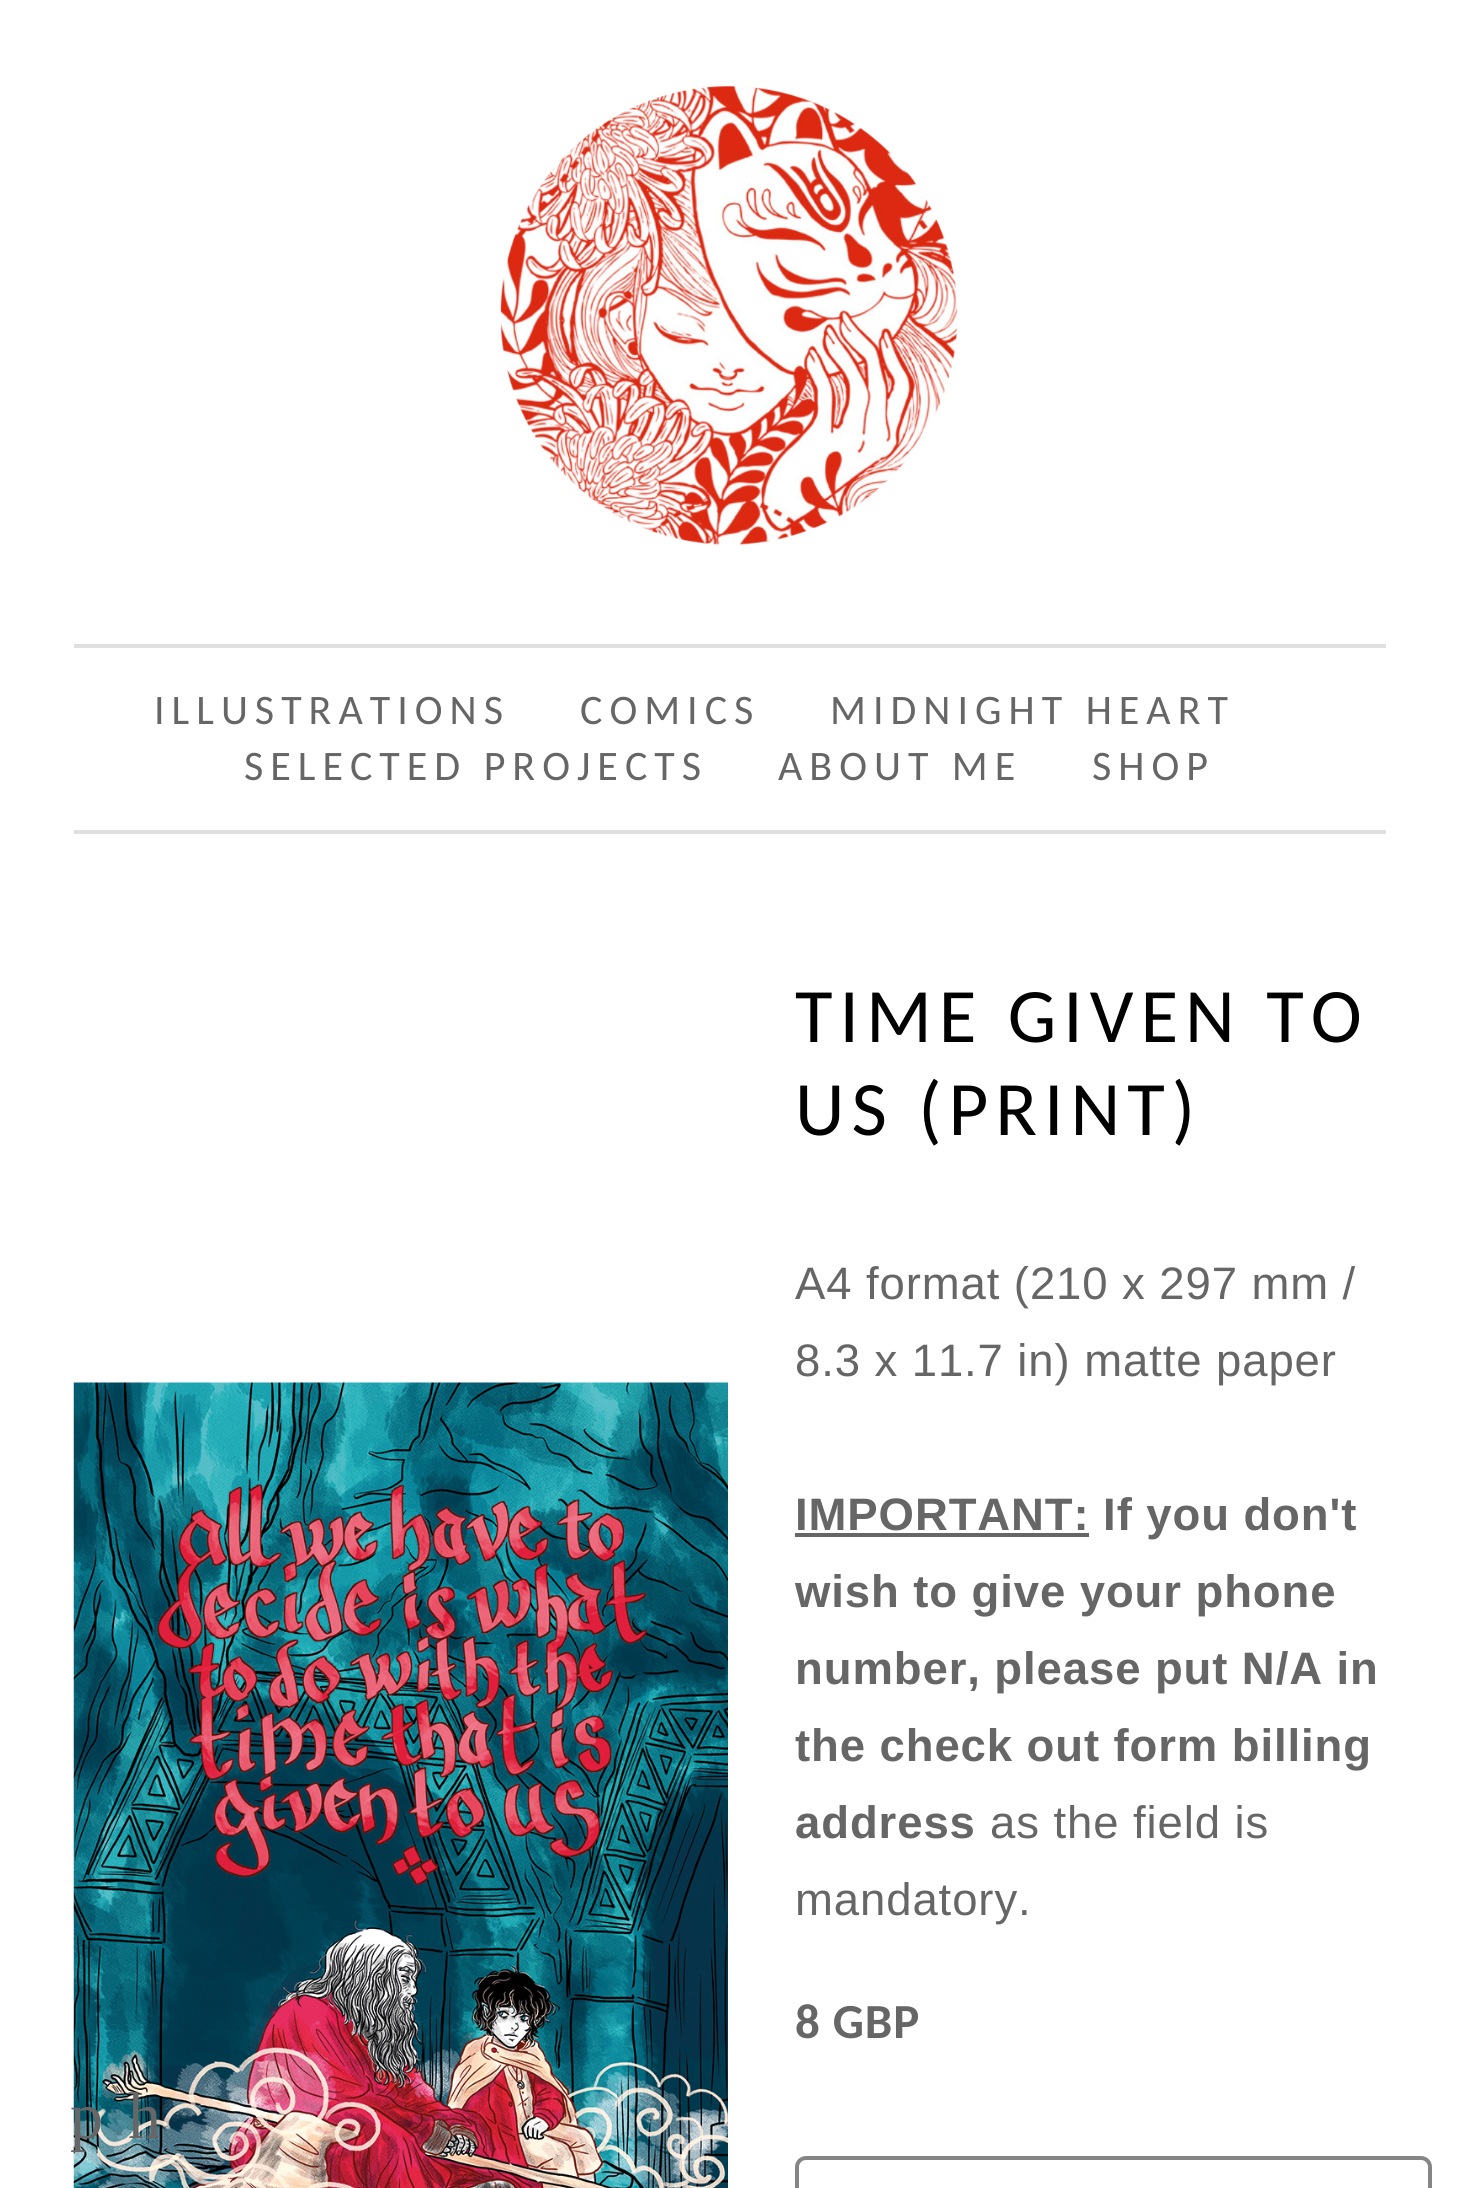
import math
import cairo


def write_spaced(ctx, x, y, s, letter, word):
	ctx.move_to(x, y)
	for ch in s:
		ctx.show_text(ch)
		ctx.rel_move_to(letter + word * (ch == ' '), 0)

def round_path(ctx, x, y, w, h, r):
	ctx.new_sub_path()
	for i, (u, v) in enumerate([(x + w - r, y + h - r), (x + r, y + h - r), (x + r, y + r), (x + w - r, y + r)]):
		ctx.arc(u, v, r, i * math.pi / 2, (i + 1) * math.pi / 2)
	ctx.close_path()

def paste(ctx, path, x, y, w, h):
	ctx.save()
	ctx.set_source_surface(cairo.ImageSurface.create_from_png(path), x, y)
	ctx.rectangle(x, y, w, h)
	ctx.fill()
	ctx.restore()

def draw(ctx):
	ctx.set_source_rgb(1, 1, 1)
	ctx.paint()
	paste(ctx, 'media/1.png', 500, 86, 458, 459)
	ctx.set_source_rgb(0.878, 0.878, 0.878)
	ctx.rectangle(74, 644, 1312, 4)
	ctx.fill()
	ctx.rectangle(74, 830, 1312, 4)
	ctx.fill()
	ctx.select_font_face('Carlito')
	ctx.set_font_size(42)
	ctx.set_source_rgb(0.4, 0.4, 0.4)
	for x, y, s in [
		(154, 724, 'ILLUSTRATIONS'),
		(580, 724, 'COMICS'),
		(830, 724, 'MIDNIGHT HEART'),
		(244, 780, 'SELECTED PROJECTS'),
		(778, 780, 'ABOUT ME'),
		(1092, 780, 'SHOP'),
	]:
		write_spaced(ctx, x, y, s, 7, 0)
	paste(ctx, 'media/2.png', 73, 1382, 655, 806)
	ctx.set_font_size(77)
	ctx.set_source_rgb(0, 0, 0)
	write_spaced(ctx, 795, 1042, 'TIME GIVEN TO', 7, 0)
	write_spaced(ctx, 795, 1135, 'US (PRINT)', 7, 0)
	ctx.select_font_face('Liberation Sans')
	ctx.set_font_size(45.5)
	ctx.set_source_rgb(0.4, 0.4, 0.4)
	write_spaced(ctx, 795, 1299, 'A4 format (210 x 297 mm /', 0.9, 0)
	write_spaced(ctx, 795, 1376, '8.3 x 11.7 in) matte paper', 0.9, 0)
	ctx.rectangle(795, 1533, 294, 4)
	ctx.fill()
	ctx.select_font_face('Liberation Sans', cairo.FONT_SLANT_NORMAL, cairo.FONT_WEIGHT_BOLD)
	for x, y, s in [
		(795, 1530, 'IMPORTANT: If you don\'t'),
		(795, 1607, 'wish to give your phone'),
		(795, 1684, 'number, please put N/A in'),
		(795, 1761, 'the check out form billing'),
		(795, 1838, 'address'),
	]:
		write_spaced(ctx, x, y, s, 0.9, 0)
	ctx.select_font_face('Liberation Sans')
	write_spaced(ctx, 990, 1838, 'as the field is', 0.9, 0)
	write_spaced(ctx, 795, 1915, 'mandatory.', 0.9, 0)
	ctx.select_font_face('Carlito', cairo.FONT_SLANT_NORMAL, cairo.FONT_WEIGHT_BOLD)
	ctx.set_font_size(49)
	write_spaced(ctx, 795, 2038, '8 GBP', 0.9, 0)
	round_path(ctx, 797, 2158, 633, 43, 9)
	ctx.set_source_rgb(0.522, 0.522, 0.522)
	ctx.set_line_width(4)
	ctx.stroke()
	ctx.select_font_face('Liberation Serif')
	ctx.set_font_size(66)
	ctx.set_source_rgb(0.4, 0.4, 0.4)
	ctx.move_to(70, 2138)
	ctx.show_text('p')
	ctx.move_to(128, 2138)
	ctx.show_text('h')


surface = cairo.ImageSurface(cairo.FORMAT_RGB24, 1459, 2188)
ctx = cairo.Context(surface)
options = cairo.FontOptions()
options.set_hint_metrics(cairo.HINT_METRICS_OFF)
options.set_hint_style(cairo.HINT_STYLE_NONE)
ctx.set_font_options(options)
ctx.set_miter_limit(4)
draw(ctx)
surface.write_to_png('image.png')
